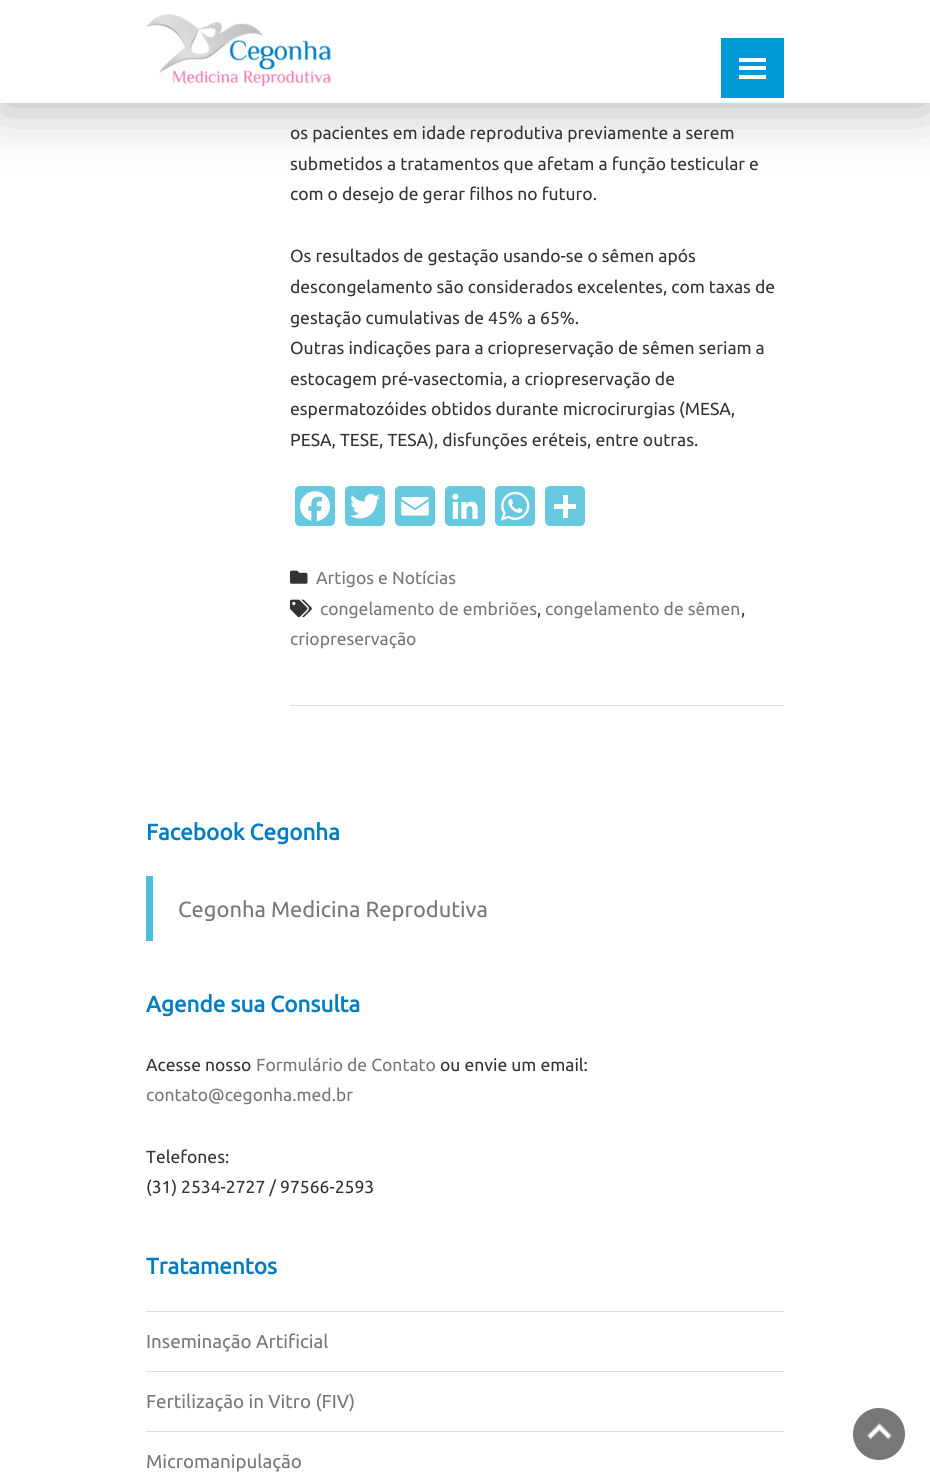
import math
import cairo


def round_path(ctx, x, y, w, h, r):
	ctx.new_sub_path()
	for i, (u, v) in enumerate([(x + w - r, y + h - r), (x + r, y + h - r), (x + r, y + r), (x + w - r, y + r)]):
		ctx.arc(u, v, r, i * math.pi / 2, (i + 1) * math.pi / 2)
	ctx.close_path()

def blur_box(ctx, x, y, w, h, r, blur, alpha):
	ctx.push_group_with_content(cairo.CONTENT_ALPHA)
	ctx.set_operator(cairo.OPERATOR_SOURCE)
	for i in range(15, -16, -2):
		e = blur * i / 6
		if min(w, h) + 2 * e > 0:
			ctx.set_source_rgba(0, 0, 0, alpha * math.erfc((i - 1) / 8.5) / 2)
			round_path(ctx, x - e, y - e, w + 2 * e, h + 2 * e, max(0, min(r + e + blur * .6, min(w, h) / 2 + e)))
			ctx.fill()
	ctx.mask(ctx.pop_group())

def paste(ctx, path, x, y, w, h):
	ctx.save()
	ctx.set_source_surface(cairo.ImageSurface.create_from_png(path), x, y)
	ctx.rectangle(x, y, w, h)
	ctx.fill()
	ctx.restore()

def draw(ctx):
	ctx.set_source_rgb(1, 1, 1)
	ctx.paint()
	ctx.set_source_rgb(0.667, 0.667, 0.667)
	blur_box(ctx, 0, 0, 930, 103, 0, 31, 1)
	ctx.set_source_rgb(1, 1, 1)
	ctx.rectangle(0, 0, 930, 103)
	ctx.fill()
	paste(ctx, 'media/1.png', 146, 14, 185, 73)
	ctx.set_source_rgb(0, 0.604, 0.839)
	ctx.rectangle(721, 38, 63, 60)
	ctx.fill()
	ctx.set_source_rgb(1, 1, 1)
	ctx.rectangle(739, 58, 27, 4)
	ctx.rectangle(739, 66, 27, 4)
	ctx.rectangle(739, 75, 27, 4)
	ctx.fill()
	ctx.set_source_rgb(0.863, 0.871, 0.894)
	ctx.rectangle(290, 705, 494, 1)
	ctx.fill()
	ctx.select_font_face('Ubuntu')
	ctx.set_font_size(17.5)
	ctx.set_source_rgb(0.2, 0.2, 0.2)
	for x, y, s in [
		(290, 139, 'os pacientes em idade reprodutiva previamente a serem'),
		(290, 170, 'submetidos a tratamentos que afetam a função testicular e'),
		(290, 200, 'com o desejo de gerar filhos no futuro.'),
		(290, 262, 'Os resultados de gestação usando-se o sêmen após'),
		(290, 293, 'descongelamento são considerados excelentes, com taxas de'),
		(290, 324, 'gestação cumulativas de 45% a 65%.'),
		(290, 354, 'Outras indicações para a criopreservação de sêmen seriam a'),
		(290, 385, 'estocagem pré-vasectomia, a criopreservação de'),
		(290, 415, 'espermatozóides obtidos durante microcirurgias (MESA,'),
		(290, 446, 'PESA, TESE, TESA), disfunções eréteis, entre outras.'),
	]:
		ctx.move_to(x, y)
		ctx.show_text(s)
	ctx.set_source_rgb(0.404, 0.788, 0.878)
	round_path(ctx, 295, 486, 40, 40, 5)
	ctx.fill()
	paste(ctx, 'media/2.png', 300, 491, 30, 30)
	round_path(ctx, 345, 486, 40, 40, 5)
	ctx.fill()
	paste(ctx, 'media/3.png', 350, 494, 30, 25)
	round_path(ctx, 395, 486, 40, 40, 5)
	ctx.fill()
	paste(ctx, 'media/4.png', 401, 497, 28, 19)
	round_path(ctx, 445, 486, 40, 40, 5)
	ctx.fill()
	paste(ctx, 'media/5.png', 452, 493, 26, 26)
	round_path(ctx, 495, 486, 40, 40, 5)
	ctx.fill()
	paste(ctx, 'media/6.png', 500, 491, 30, 30)
	round_path(ctx, 545, 486, 40, 40, 5)
	ctx.fill()
	ctx.set_source_rgb(1, 1, 1)
	ctx.rectangle(563, 495, 5, 23)
	ctx.fill()
	ctx.rectangle(554, 504, 22, 5)
	ctx.fill()
	paste(ctx, 'media/7.png', 290, 570, 18, 14)
	ctx.set_source_rgb(0.467, 0.467, 0.467)
	ctx.move_to(316, 584)
	ctx.show_text('Artigos e Notícias')
	paste(ctx, 'media/8.png', 290, 599, 22, 19)
	ctx.move_to(320, 615)
	ctx.show_text('congelamento de embriões')
	ctx.set_source_rgb(0.2, 0.2, 0.2)
	ctx.move_to(537, 615)
	ctx.show_text(',')
	ctx.set_source_rgb(0.467, 0.467, 0.467)
	ctx.move_to(545, 615)
	ctx.show_text('congelamento de sêmen')
	ctx.set_source_rgb(0.2, 0.2, 0.2)
	ctx.move_to(741, 615)
	ctx.show_text(',')
	ctx.set_source_rgb(0.467, 0.467, 0.467)
	ctx.move_to(290, 645)
	ctx.show_text('criopreservação')
	ctx.select_font_face('Ubuntu', cairo.FONT_SLANT_NORMAL, cairo.FONT_WEIGHT_BOLD)
	ctx.set_font_size(22.5)
	ctx.set_source_rgb(0, 0.49, 0.765)
	ctx.move_to(146, 840)
	ctx.show_text('Facebook Cegonha')
	ctx.set_source_rgb(0.302, 0.745, 0.851)
	ctx.rectangle(146, 876, 7, 65)
	ctx.fill()
	ctx.select_font_face('Ubuntu')
	ctx.set_font_size(21.9)
	ctx.set_source_rgb(0.467, 0.467, 0.467)
	ctx.move_to(178, 917)
	ctx.show_text('Cegonha Medicina Reprodutiva')
	ctx.select_font_face('Ubuntu', cairo.FONT_SLANT_NORMAL, cairo.FONT_WEIGHT_BOLD)
	ctx.set_font_size(22.5)
	ctx.set_source_rgb(0, 0.49, 0.765)
	ctx.move_to(146, 1012)
	ctx.show_text('Agende sua Consulta')
	ctx.select_font_face('Ubuntu')
	ctx.set_font_size(17.5)
	ctx.set_source_rgb(0.2, 0.2, 0.2)
	ctx.move_to(146, 1071)
	ctx.show_text('Acesse nosso')
	ctx.set_source_rgb(0.467, 0.467, 0.467)
	ctx.move_to(256, 1071)
	ctx.show_text('Formulário de Contato')
	ctx.set_source_rgb(0.2, 0.2, 0.2)
	ctx.move_to(440, 1071)
	ctx.show_text('ou envie um email:')
	ctx.set_source_rgb(0.467, 0.467, 0.467)
	ctx.move_to(146, 1101)
	ctx.show_text('contato@cegonha.med.br')
	ctx.set_source_rgb(0.2, 0.2, 0.2)
	ctx.move_to(146, 1163)
	ctx.show_text('Telefones:')
	ctx.move_to(146, 1193)
	ctx.show_text('(31) 2534-2727 / 97566-2593')
	ctx.select_font_face('Ubuntu', cairo.FONT_SLANT_NORMAL, cairo.FONT_WEIGHT_BOLD)
	ctx.set_font_size(22.5)
	ctx.set_source_rgb(0, 0.49, 0.765)
	ctx.move_to(146, 1274)
	ctx.show_text('Tratamentos')
	ctx.set_source_rgb(0.867, 0.882, 0.89)
	ctx.rectangle(146, 1311, 638, 1)
	ctx.fill()
	ctx.rectangle(146, 1371, 638, 1)
	ctx.fill()
	ctx.select_font_face('Ubuntu')
	ctx.set_font_size(18.75)
	ctx.set_source_rgb(0.467, 0.467, 0.467)
	ctx.move_to(146, 1348)
	ctx.show_text('Inseminação Artificial')
	ctx.set_source_rgb(0.867, 0.882, 0.89)
	ctx.rectangle(146, 1431, 638, 1)
	ctx.fill()
	ctx.set_source_rgb(0.467, 0.467, 0.467)
	ctx.move_to(146, 1408)
	ctx.show_text('Fertilização in Vitro (FIV)')
	ctx.move_to(146, 1468)
	ctx.show_text('Micromanipulação')
	ctx.new_path()
	ctx.arc(879, 1434, 26, 0, 2 * math.pi)
	ctx.fill()
	paste(ctx, 'media/9.png', 867, 1423, 25, 17)


surface = cairo.ImageSurface(cairo.FORMAT_RGB24, 930, 1484)
ctx = cairo.Context(surface)
options = cairo.FontOptions()
options.set_hint_metrics(cairo.HINT_METRICS_OFF)
options.set_hint_style(cairo.HINT_STYLE_NONE)
ctx.set_font_options(options)
ctx.set_miter_limit(4)
draw(ctx)
surface.write_to_png('image.png')
